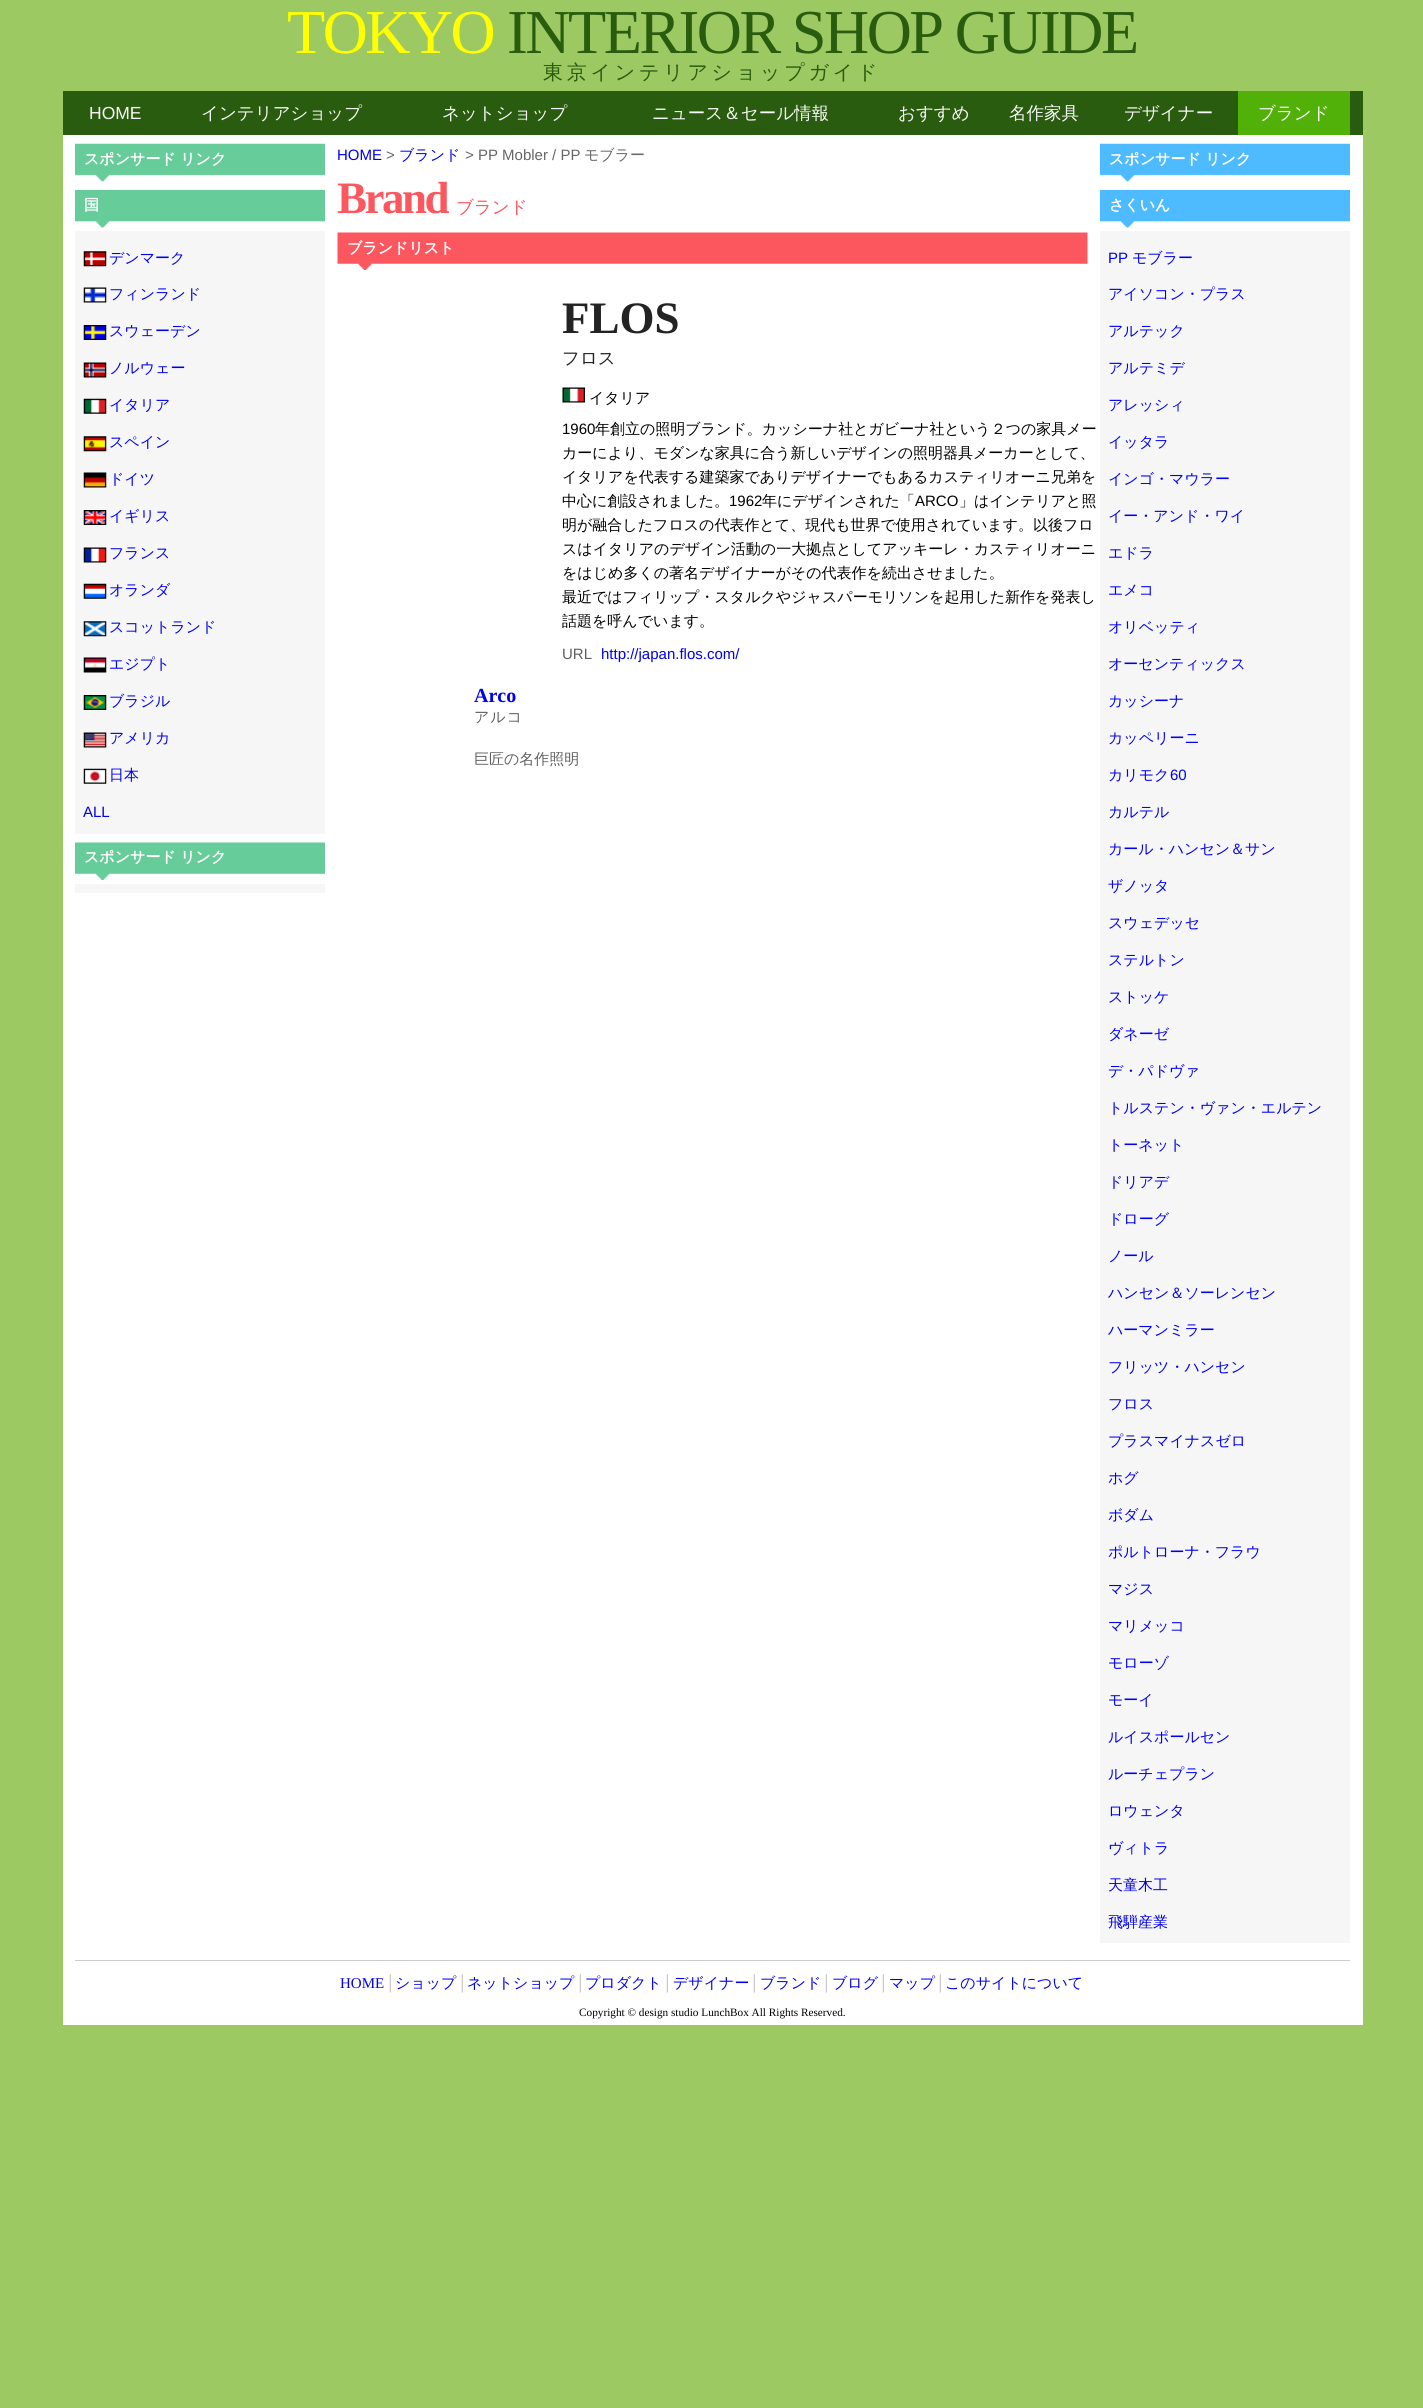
import math
import cairo


def write_spaced(ctx, x, y, s, letter, word):
	ctx.move_to(x, y)
	for ch in s:
		ctx.show_text(ch)
		ctx.rel_move_to(letter + word * (ch == ' '), 0)

def paste(ctx, path, x, y, w, h):
	ctx.save()
	ctx.set_source_surface(cairo.ImageSurface.create_from_png(path), x, y)
	ctx.rectangle(x, y, w, h)
	ctx.fill()
	ctx.restore()

def draw(ctx):
	ctx.set_source_rgb(0.616, 0.788, 0.388)
	ctx.paint()
	ctx.select_font_face('Liberation Serif')
	ctx.set_font_size(62.5)
	ctx.set_source_rgb(1, 1, 0)
	write_spaced(ctx, 287, 53, 'TOKYO', -2.5, 0)
	ctx.set_source_rgb(0.161, 0.361, 0.055)
	write_spaced(ctx, 507, 53, 'INTERIOR SHOP GUIDE', -2.5, 0)
	ctx.select_font_face('WenQuanYi Zen Hei Medium')
	ctx.set_font_size(20)
	write_spaced(ctx, 543, 79, '東京インテリアショップガイド', 3.75, 0)
	ctx.set_source_rgb(1, 1, 1)
	ctx.rectangle(63, 135, 1300, 1890)
	ctx.fill()
	ctx.set_source_rgb(0.161, 0.361, 0.055)
	ctx.rectangle(63, 91, 1300, 44)
	ctx.fill()
	ctx.select_font_face('Liberation Sans')
	ctx.set_font_size(17.5)
	ctx.set_source_rgb(0.976, 0.976, 0.976)
	ctx.move_to(89, 119)
	ctx.show_text('HOME')
	ctx.select_font_face('WenQuanYi Zen Hei Medium')
	for x, y, s in [
		(201, 119, 'インテリアショップ'),
		(442, 119, 'ネットショップ'),
		(652, 119, 'ニュース＆セール情報'),
		(898, 119, 'おすすめ'),
		(1009, 119, '名作家具'),
		(1124, 119, 'デザイナー'),
	]:
		ctx.move_to(x, y)
		ctx.show_text(s)
	ctx.set_source_rgb(0.318, 0.694, 0.039)
	ctx.rectangle(1238, 91, 112, 44)
	ctx.fill()
	ctx.set_source_rgb(0.976, 0.976, 0.976)
	ctx.move_to(1258, 119)
	ctx.show_text('ブランド')
	paste(ctx, 'media/1.png', 75, 143, 250, 39)
	ctx.select_font_face('WenQuanYi Zen Hei', cairo.FONT_SLANT_NORMAL, cairo.FONT_WEIGHT_BOLD)
	ctx.set_font_size(15)
	ctx.set_source_rgb(1, 1, 1)
	ctx.move_to(84, 164)
	ctx.show_text('スポンサード リンク')
	paste(ctx, 'media/2.png', 75, 190, 250, 38)
	ctx.move_to(84, 210)
	ctx.show_text('国')
	ctx.set_source_rgb(0.961, 0.961, 0.961)
	ctx.rectangle(75, 231, 250, 603)
	ctx.fill()
	paste(ctx, 'media/3.png', 83, 251, 24, 16)
	ctx.select_font_face('WenQuanYi Zen Hei Medium')
	ctx.set_source_rgb(0, 0, 0.933)
	ctx.move_to(109, 263)
	ctx.show_text('デンマーク')
	paste(ctx, 'media/4.png', 83, 287, 24, 16)
	ctx.move_to(109, 299)
	ctx.show_text('フィンランド')
	paste(ctx, 'media/5.png', 83, 325, 24, 15)
	ctx.move_to(109, 336)
	ctx.show_text('スウェーデン')
	paste(ctx, 'media/6.png', 83, 362, 24, 16)
	ctx.move_to(109, 373)
	ctx.show_text('ノルウェー')
	paste(ctx, 'media/7.png', 83, 398, 24, 16)
	ctx.move_to(109, 410)
	ctx.show_text('イタリア')
	paste(ctx, 'media/8.png', 83, 436, 24, 16)
	ctx.move_to(109, 447)
	ctx.show_text('スペイン')
	paste(ctx, 'media/9.png', 83, 472, 24, 16)
	ctx.move_to(109, 484)
	ctx.show_text('ドイツ')
	paste(ctx, 'media/10.png', 83, 510, 24, 15)
	ctx.move_to(109, 521)
	ctx.show_text('イギリス')
	paste(ctx, 'media/11.png', 83, 547, 24, 16)
	ctx.move_to(109, 558)
	ctx.show_text('フランス')
	paste(ctx, 'media/12.png', 83, 583, 24, 16)
	ctx.move_to(109, 595)
	ctx.show_text('オランダ')
	paste(ctx, 'media/13.png', 83, 621, 24, 16)
	ctx.move_to(109, 632)
	ctx.show_text('スコットランド')
	paste(ctx, 'media/14.png', 83, 657, 24, 16)
	ctx.move_to(109, 669)
	ctx.show_text('エジプト')
	paste(ctx, 'media/15.png', 83, 695, 24, 15)
	ctx.move_to(109, 706)
	ctx.show_text('ブラジル')
	paste(ctx, 'media/16.png', 83, 732, 24, 16)
	ctx.move_to(109, 743)
	ctx.show_text('アメリカ')
	paste(ctx, 'media/17.png', 83, 768, 24, 16)
	ctx.move_to(109, 780)
	ctx.show_text('日本')
	ctx.select_font_face('Liberation Sans')
	ctx.move_to(83, 817)
	ctx.show_text('ALL')
	paste(ctx, 'media/18.png', 75, 842, 250, 38)
	ctx.select_font_face('WenQuanYi Zen Hei', cairo.FONT_SLANT_NORMAL, cairo.FONT_WEIGHT_BOLD)
	ctx.set_source_rgb(1, 1, 1)
	ctx.move_to(84, 862)
	ctx.show_text('スポンサード リンク')
	ctx.set_source_rgb(0.961, 0.961, 0.961)
	ctx.rectangle(75, 884, 250, 9)
	ctx.fill()
	ctx.select_font_face('Liberation Sans')
	ctx.set_source_rgb(0, 0, 0.933)
	ctx.move_to(337, 160)
	ctx.show_text('HOME')
	ctx.set_source_rgb(0.4, 0.4, 0.4)
	ctx.move_to(386, 160)
	ctx.show_text('>')
	ctx.select_font_face('WenQuanYi Zen Hei Medium')
	ctx.set_source_rgb(0, 0, 0.933)
	ctx.move_to(399, 160)
	ctx.show_text('ブランド')
	ctx.select_font_face('Liberation Sans')
	ctx.set_source_rgb(0.4, 0.4, 0.4)
	ctx.move_to(465, 160)
	ctx.show_text('> PP Mobler / PP')
	ctx.select_font_face('WenQuanYi Zen Hei Medium')
	ctx.move_to(584, 160)
	ctx.show_text('モブラー')
	ctx.select_font_face('Liberation Serif', cairo.FONT_SLANT_NORMAL, cairo.FONT_WEIGHT_BOLD)
	ctx.set_font_size(45)
	ctx.set_source_rgb(0.988, 0.341, 0.369)
	write_spaced(ctx, 337, 213, 'Brand', -2.5, 0)
	ctx.select_font_face('WenQuanYi Zen Hei Medium')
	ctx.set_font_size(17.5)
	ctx.move_to(456, 213)
	ctx.show_text('ブランド')
	paste(ctx, 'media/19.png', 337, 232, 751, 38)
	ctx.select_font_face('WenQuanYi Zen Hei', cairo.FONT_SLANT_NORMAL, cairo.FONT_WEIGHT_BOLD)
	ctx.set_font_size(15)
	ctx.set_source_rgb(1, 1, 1)
	ctx.move_to(347, 253)
	ctx.show_text('ブランドリスト')
	ctx.select_font_face('Liberation Serif', cairo.FONT_SLANT_NORMAL, cairo.FONT_WEIGHT_BOLD)
	ctx.set_font_size(45)
	ctx.set_source_rgb(0.137, 0.137, 0.137)
	ctx.move_to(562, 333)
	ctx.show_text('FLOS')
	ctx.select_font_face('WenQuanYi Zen Hei Medium')
	ctx.set_font_size(17.5)
	ctx.move_to(562, 364)
	ctx.show_text('フロス')
	paste(ctx, 'media/20.png', 562, 387, 23, 16)
	ctx.set_font_size(15)
	ctx.set_source_rgb(0, 0, 0)
	ctx.move_to(589, 403)
	ctx.show_text('イタリア')
	ctx.select_font_face('Liberation Sans')
	ctx.move_to(562, 434)
	ctx.show_text('1960')
	ctx.select_font_face('WenQuanYi Zen Hei Medium')
	for x, y, s in [
		(595, 434, '年創立の照明ブランド。カッシーナ社とガビーナ社という２つの家具メー'),
		(562, 458, 'カーにより、モダンな家具に合う新しいデザインの照明器具メーカーとして、'),
		(562, 482, 'イタリアを代表する建築家でありデザイナーでもあるカスティリオーニ兄弟を'),
		(562, 506, '中心に創設されました。'),
	]:
		ctx.move_to(x, y)
		ctx.show_text(s)
	ctx.select_font_face('Liberation Sans')
	ctx.move_to(729, 506)
	ctx.show_text('1962')
	ctx.select_font_face('WenQuanYi Zen Hei Medium')
	ctx.move_to(762, 506)
	ctx.show_text('年にデザインされた「')
	ctx.select_font_face('Liberation Sans')
	ctx.move_to(915, 506)
	ctx.show_text('ARCO')
	ctx.select_font_face('WenQuanYi Zen Hei Medium')
	for x, y, s in [
		(959, 506, '」はインテリアと照'),
		(562, 530, '明が融合したフロスの代表作とて、現代も世界で使用されています。以後フロ'),
		(562, 554, 'スはイタリアのデザイン活動の一大拠点としてアッキーレ・カスティリオーニ'),
		(562, 578, 'をはじめ多くの著名デザイナーがその代表作を続出させました。'),
		(562, 602, '最近ではフィリップ・スタルクやジャスパーモリソンを起用した新作を発表し'),
		(562, 626, '話題を呼んでいます。'),
	]:
		ctx.move_to(x, y)
		ctx.show_text(s)
	ctx.select_font_face('Liberation Sans')
	ctx.set_source_rgb(0.373, 0.373, 0.373)
	ctx.move_to(562, 659)
	ctx.show_text('URL')
	ctx.set_source_rgb(0, 0, 0.933)
	ctx.move_to(601, 659)
	ctx.show_text('http://japan.flos.com/')
	ctx.select_font_face('Liberation Serif', cairo.FONT_SLANT_NORMAL, cairo.FONT_WEIGHT_BOLD)
	ctx.set_font_size(20)
	ctx.move_to(474, 702)
	ctx.show_text('Arco')
	ctx.select_font_face('WenQuanYi Zen Hei Medium')
	ctx.set_font_size(15)
	ctx.set_source_rgb(0.373, 0.373, 0.373)
	write_spaced(ctx, 474, 722, 'アルコ', 1, 0)
	ctx.move_to(474, 764)
	ctx.show_text('巨匠の名作照明')
	paste(ctx, 'media/21.png', 1100, 143, 250, 39)
	ctx.select_font_face('WenQuanYi Zen Hei', cairo.FONT_SLANT_NORMAL, cairo.FONT_WEIGHT_BOLD)
	ctx.set_source_rgb(1, 1, 1)
	ctx.move_to(1109, 164)
	ctx.show_text('スポンサード リンク')
	paste(ctx, 'media/22.png', 1100, 190, 250, 38)
	ctx.move_to(1109, 210)
	ctx.show_text('さくいん')
	ctx.set_source_rgb(0.961, 0.961, 0.961)
	ctx.rectangle(1100, 231, 250, 1712)
	ctx.fill()
	ctx.select_font_face('Liberation Sans')
	ctx.set_source_rgb(0, 0, 0.933)
	ctx.move_to(1108, 263)
	ctx.show_text('PP')
	ctx.select_font_face('WenQuanYi Zen Hei Medium')
	for x, y, s in [
		(1132, 263, 'モブラー'),
		(1108, 299, 'アイソコン・プラス'),
		(1108, 336, 'アルテック'),
		(1108, 373, 'アルテミデ'),
		(1108, 410, 'アレッシィ'),
		(1108, 447, 'イッタラ'),
		(1108, 484, 'インゴ・マウラー'),
		(1108, 521, 'イー・アンド・ワイ'),
		(1108, 558, 'エドラ'),
		(1108, 595, 'エメコ'),
		(1108, 632, 'オリベッティ'),
		(1108, 669, 'オーセンティックス'),
		(1108, 706, 'カッシーナ'),
		(1108, 743, 'カッペリーニ'),
		(1108, 780, 'カリモク'),
	]:
		ctx.move_to(x, y)
		ctx.show_text(s)
	ctx.select_font_face('Liberation Sans')
	ctx.move_to(1170, 780)
	ctx.show_text('60')
	ctx.select_font_face('WenQuanYi Zen Hei Medium')
	for x, y, s in [
		(1108, 817, 'カルテル'),
		(1108, 854, 'カール・ハンセン＆サン'),
		(1108, 891, 'ザノッタ'),
		(1108, 928, 'スウェデッセ'),
		(1108, 965, 'ステルトン'),
		(1108, 1002, 'ストッケ'),
		(1108, 1039, 'ダネーゼ'),
		(1108, 1076, 'デ・パドヴァ'),
		(1108, 1113, 'トルステン・ヴァン・エルテン'),
		(1108, 1150, 'トーネット'),
		(1108, 1187, 'ドリアデ'),
		(1108, 1224, 'ドローグ'),
		(1108, 1261, 'ノール'),
		(1108, 1298, 'ハンセン＆ソーレンセン'),
		(1108, 1335, 'ハーマンミラー'),
		(1108, 1372, 'フリッツ・ハンセン'),
		(1108, 1409, 'フロス'),
		(1108, 1446, 'プラスマイナスゼロ'),
		(1108, 1483, 'ホグ'),
		(1108, 1520, 'ボダム'),
		(1108, 1557, 'ポルトローナ・フラウ'),
		(1108, 1594, 'マジス'),
		(1108, 1631, 'マリメッコ'),
		(1108, 1668, 'モローゾ'),
		(1108, 1705, 'モーイ'),
		(1108, 1742, 'ルイスポールセン'),
		(1108, 1779, 'ルーチェプラン'),
		(1108, 1816, 'ロウェンタ'),
		(1108, 1853, 'ヴィトラ'),
		(1108, 1890, '天童木工'),
		(1108, 1927, '飛騨産業'),
	]:
		ctx.move_to(x, y)
		ctx.show_text(s)
	ctx.set_source_rgb(0.8, 0.8, 0.8)
	ctx.rectangle(75, 1960, 1275, 1)
	ctx.fill()
	ctx.select_font_face('Liberation Serif')
	ctx.set_source_rgb(0, 0, 0.933)
	ctx.move_to(340, 1988)
	ctx.show_text('HOME')
	ctx.set_source_rgb(0.753, 0.753, 0.753)
	ctx.move_to(385, 1988)
	ctx.show_text('│')
	ctx.select_font_face('WenQuanYi Zen Hei Medium')
	ctx.set_source_rgb(0, 0, 0.933)
	ctx.move_to(395, 1988)
	ctx.show_text('ショップ')
	ctx.select_font_face('Liberation Serif')
	ctx.set_source_rgb(0.753, 0.753, 0.753)
	ctx.move_to(457, 1988)
	ctx.show_text('│')
	ctx.select_font_face('WenQuanYi Zen Hei Medium')
	ctx.set_source_rgb(0, 0, 0.933)
	ctx.move_to(467, 1988)
	ctx.show_text('ネットショップ')
	ctx.select_font_face('Liberation Serif')
	ctx.set_source_rgb(0.753, 0.753, 0.753)
	ctx.move_to(575, 1988)
	ctx.show_text('│')
	ctx.select_font_face('WenQuanYi Zen Hei Medium')
	ctx.set_source_rgb(0, 0, 0.933)
	ctx.move_to(585, 1988)
	ctx.show_text('プロダクト')
	ctx.select_font_face('Liberation Serif')
	ctx.set_source_rgb(0.753, 0.753, 0.753)
	ctx.move_to(662, 1988)
	ctx.show_text('│')
	ctx.select_font_face('WenQuanYi Zen Hei Medium')
	ctx.set_source_rgb(0, 0, 0.933)
	ctx.move_to(673, 1988)
	ctx.show_text('デザイナー')
	ctx.select_font_face('Liberation Serif')
	ctx.set_source_rgb(0.753, 0.753, 0.753)
	ctx.move_to(749, 1988)
	ctx.show_text('│')
	ctx.select_font_face('WenQuanYi Zen Hei Medium')
	ctx.set_source_rgb(0, 0, 0.933)
	ctx.move_to(760, 1988)
	ctx.show_text('ブランド')
	ctx.select_font_face('Liberation Serif')
	ctx.set_source_rgb(0.753, 0.753, 0.753)
	ctx.move_to(821, 1988)
	ctx.show_text('│')
	ctx.select_font_face('WenQuanYi Zen Hei Medium')
	ctx.set_source_rgb(0, 0, 0.933)
	ctx.move_to(832, 1988)
	ctx.show_text('ブログ')
	ctx.select_font_face('Liberation Serif')
	ctx.set_source_rgb(0.753, 0.753, 0.753)
	ctx.move_to(878, 1988)
	ctx.show_text('│')
	ctx.select_font_face('WenQuanYi Zen Hei Medium')
	ctx.set_source_rgb(0, 0, 0.933)
	ctx.move_to(889, 1988)
	ctx.show_text('マップ')
	ctx.select_font_face('Liberation Serif')
	ctx.set_source_rgb(0.753, 0.753, 0.753)
	ctx.move_to(935, 1988)
	ctx.show_text('│')
	ctx.select_font_face('WenQuanYi Zen Hei Medium')
	ctx.set_source_rgb(0, 0, 0.933)
	ctx.move_to(945, 1988)
	ctx.show_text('このサイトについて')
	ctx.select_font_face('Liberation Serif')
	ctx.set_font_size(11.25)
	ctx.set_source_rgb(0, 0, 0)
	ctx.move_to(579, 2016)
	ctx.show_text('Copyright © design studio LunchBox All Rights Reserved.')


surface = cairo.ImageSurface(cairo.FORMAT_RGB24, 1423, 2408)
ctx = cairo.Context(surface)
options = cairo.FontOptions()
options.set_hint_metrics(cairo.HINT_METRICS_OFF)
options.set_hint_style(cairo.HINT_STYLE_NONE)
ctx.set_font_options(options)
ctx.set_miter_limit(4)
draw(ctx)
surface.write_to_png('image.png')
